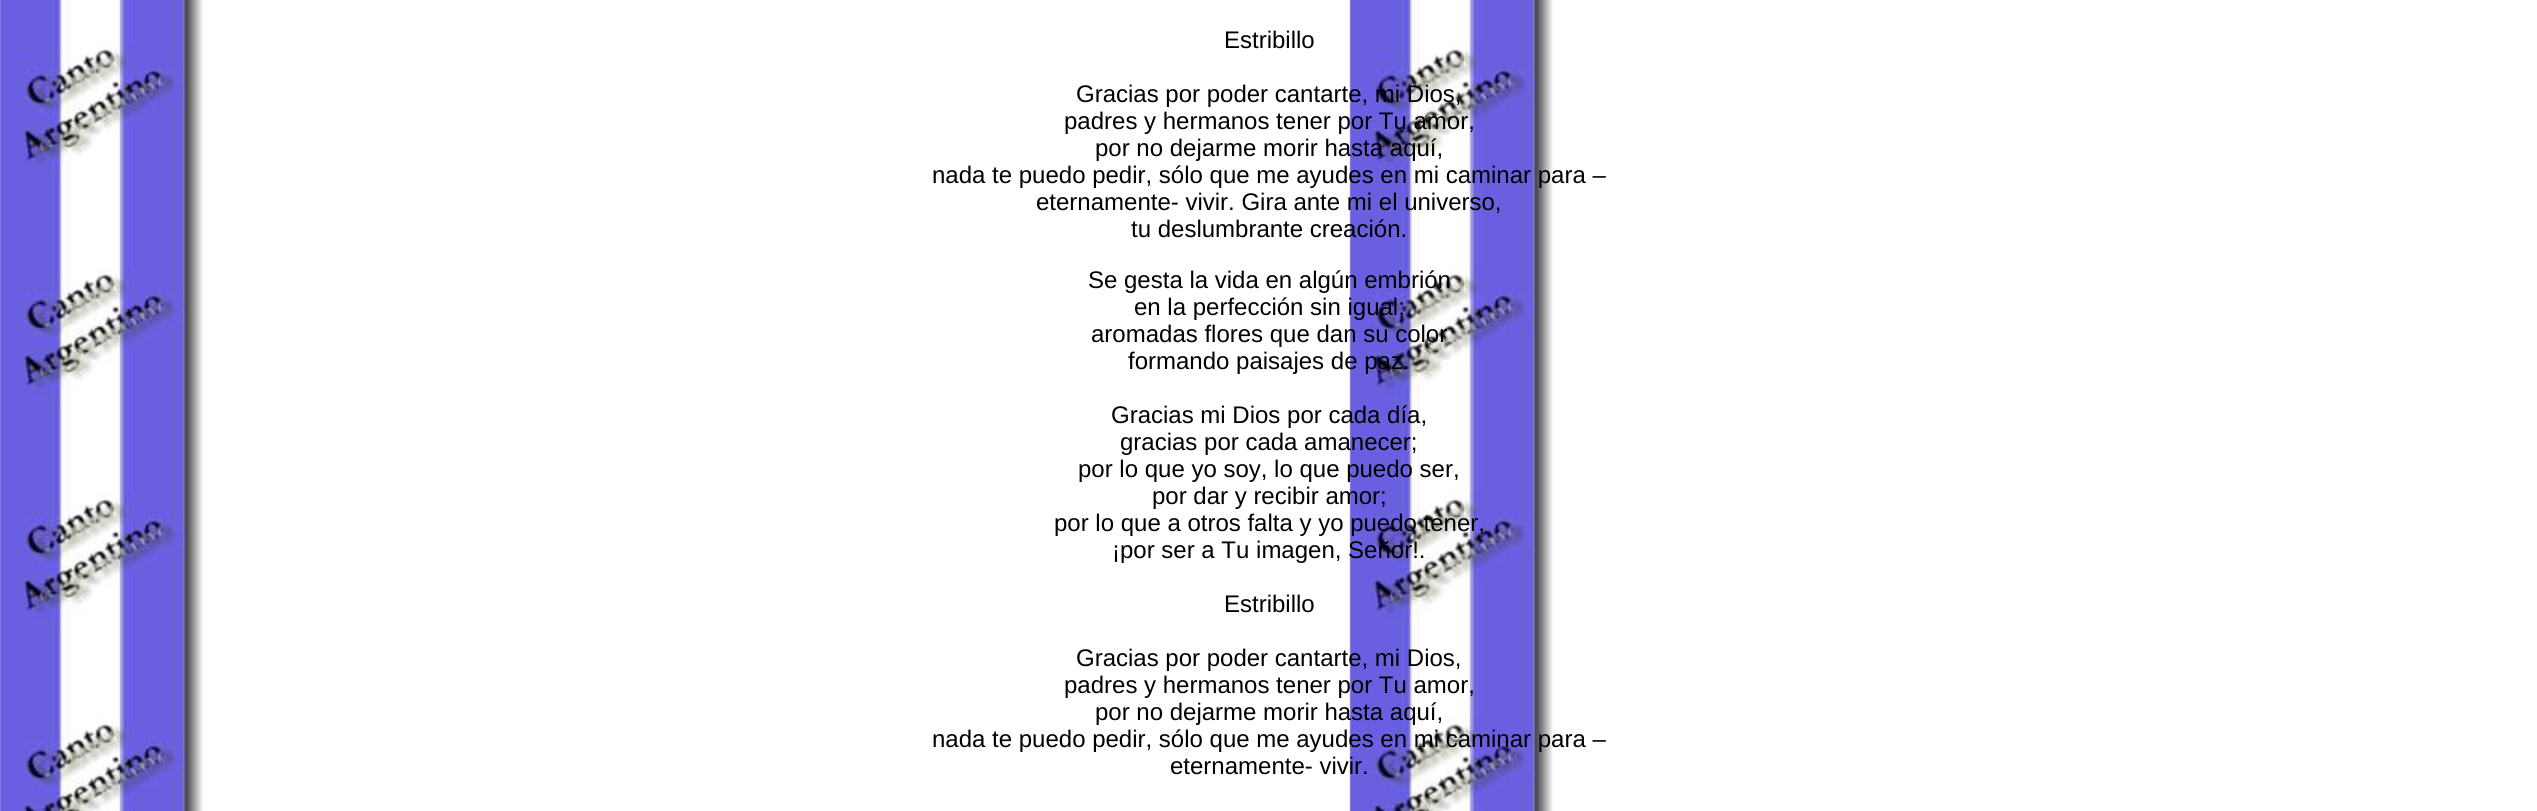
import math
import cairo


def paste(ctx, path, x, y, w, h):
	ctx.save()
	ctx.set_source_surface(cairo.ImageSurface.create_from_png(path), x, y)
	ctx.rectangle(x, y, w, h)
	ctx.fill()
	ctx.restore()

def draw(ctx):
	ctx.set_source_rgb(1, 1, 1)
	ctx.paint()
	paste(ctx, 'media/1.png', 0, 0, 1553, 811)
	ctx.select_font_face('Liberation Sans')
	ctx.set_font_size(24)
	ctx.set_source_rgb(0, 0, 0)
	for x, y, s in [
		(1224, 48, 'Estribillo'),
		(1076, 102, 'Gracias por poder cantarte, mi Dios,'),
		(1064, 129, 'padres y hermanos tener por Tu amor,'),
		(1095, 156, 'por no dejarme morir hasta aquí,'),
		(932, 183, 'nada te puedo pedir, sólo que me ayudes en mi caminar para –'),
		(1036, 210, 'eternamente- vivir. Gira ante mi el universo,'),
		(1131, 237, 'tu deslumbrante creación.'),
		(1088, 288, 'Se gesta la vida en algún embrión'),
		(1134, 315, 'en la perfección sin igual;'),
		(1091, 342, 'aromadas flores que dan su color'),
		(1128, 369, 'formando paisajes de paz.'),
		(1111, 423, 'Gracias mi Dios por cada día,'),
		(1120, 450, 'gracias por cada amanecer;'),
		(1078, 477, 'por lo que yo soy, lo que puedo ser,'),
		(1152, 504, 'por dar y recibir amor;'),
		(1054, 531, 'por lo que a otros falta y yo puedo tener,'),
		(1112, 558, '¡por ser a Tu imagen, Señor!.'),
		(1224, 612, 'Estribillo'),
		(1076, 666, 'Gracias por poder cantarte, mi Dios,'),
		(1064, 693, 'padres y hermanos tener por Tu amor,'),
		(1095, 720, 'por no dejarme morir hasta aquí,'),
		(932, 747, 'nada te puedo pedir, sólo que me ayudes en mi caminar para –'),
		(1170, 774, 'eternamente- vivir.'),
	]:
		ctx.move_to(x, y)
		ctx.show_text(s)


surface = cairo.ImageSurface(cairo.FORMAT_RGB24, 2537, 811)
ctx = cairo.Context(surface)
options = cairo.FontOptions()
options.set_hint_metrics(cairo.HINT_METRICS_OFF)
options.set_hint_style(cairo.HINT_STYLE_NONE)
ctx.set_font_options(options)
ctx.set_miter_limit(4)
draw(ctx)
surface.write_to_png('image.png')
